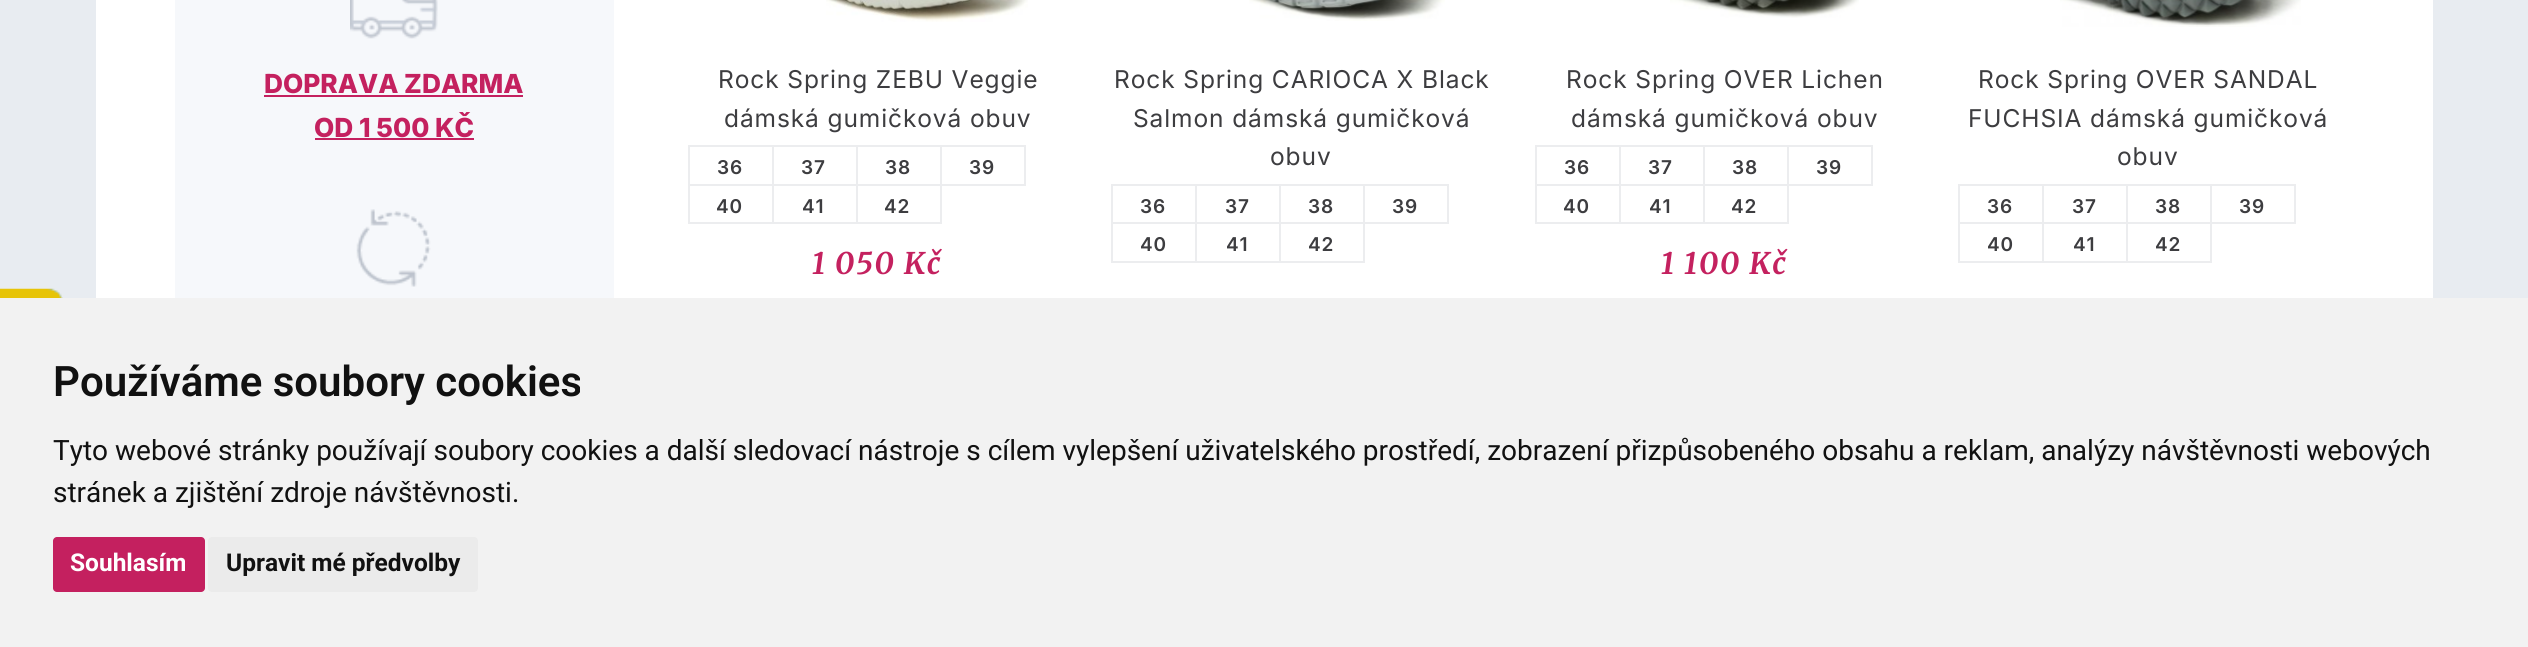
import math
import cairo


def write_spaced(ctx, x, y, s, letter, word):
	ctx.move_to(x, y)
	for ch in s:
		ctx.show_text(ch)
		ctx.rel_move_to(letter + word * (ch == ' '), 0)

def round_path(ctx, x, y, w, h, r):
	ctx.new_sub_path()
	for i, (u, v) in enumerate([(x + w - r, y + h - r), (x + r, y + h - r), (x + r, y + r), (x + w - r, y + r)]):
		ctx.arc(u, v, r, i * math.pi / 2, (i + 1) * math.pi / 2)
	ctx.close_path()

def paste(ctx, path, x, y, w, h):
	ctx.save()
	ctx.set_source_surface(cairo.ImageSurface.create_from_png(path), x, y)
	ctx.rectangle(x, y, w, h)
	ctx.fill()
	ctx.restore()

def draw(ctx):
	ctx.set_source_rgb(0.91, 0.922, 0.945)
	ctx.paint()
	ctx.set_source_rgb(1, 1, 1)
	ctx.rectangle(96, 0, 2337, 298)
	ctx.fill()
	ctx.set_source_rgb(0.961, 0.969, 0.984)
	ctx.rectangle(175, 0, 439, 298)
	ctx.fill()
	paste(ctx, 'media/1.png', 350, 0, 88, 39)
	ctx.select_font_face('Inter ExtraBold')
	ctx.set_font_size(26.25)
	ctx.set_source_rgb(0.769, 0.129, 0.373)
	ctx.move_to(264, 93)
	ctx.show_text('DOPRAVA ZDARMA')
	ctx.rectangle(264, 95, 259, 2)
	ctx.fill()
	ctx.move_to(314, 137)
	ctx.show_text('OD 1 500 KČ')
	ctx.rectangle(315, 138, 159, 2)
	ctx.fill()
	paste(ctx, 'media/2.png', 356, 209, 75, 78)
	paste(ctx, 'media/3.png', 826, 0, 202, 22)
	ctx.select_font_face('Inter')
	ctx.set_font_size(24.5)
	ctx.set_source_rgb(0.239, 0.239, 0.251)
	write_spaced(ctx, 718, 88, 'Rock Spring ZEBU Veggie', 0.9, 0)
	write_spaced(ctx, 724, 127, 'dámská gumičková obuv', 0.9, 0)
	ctx.rectangle(689, 146, 84, 39)
	ctx.set_source_rgb(0.922, 0.929, 0.937)
	ctx.stroke()
	ctx.select_font_face('Inter SemiBold')
	ctx.set_font_size(19)
	ctx.set_source_rgb(0.239, 0.239, 0.251)
	write_spaced(ctx, 717, 174, '36', 0.9, 0)
	ctx.rectangle(773, 146, 84, 39)
	ctx.set_source_rgb(0.922, 0.929, 0.937)
	ctx.stroke()
	ctx.set_source_rgb(0.239, 0.239, 0.251)
	write_spaced(ctx, 801, 174, '37', 0.9, 0)
	ctx.rectangle(857, 146, 84, 39)
	ctx.set_source_rgb(0.922, 0.929, 0.937)
	ctx.stroke()
	ctx.set_source_rgb(0.239, 0.239, 0.251)
	write_spaced(ctx, 885, 174, '38', 0.9, 0)
	ctx.rectangle(941, 146, 84, 39)
	ctx.set_source_rgb(0.922, 0.929, 0.937)
	ctx.stroke()
	ctx.set_source_rgb(0.239, 0.239, 0.251)
	write_spaced(ctx, 969, 174, '39', 0.9, 0)
	ctx.rectangle(689, 185, 84, 38)
	ctx.set_source_rgb(0.922, 0.929, 0.937)
	ctx.stroke()
	ctx.set_source_rgb(0.239, 0.239, 0.251)
	write_spaced(ctx, 716, 213, '40', 0.9, 0)
	ctx.rectangle(773, 185, 84, 38)
	ctx.set_source_rgb(0.922, 0.929, 0.937)
	ctx.stroke()
	ctx.set_source_rgb(0.239, 0.239, 0.251)
	write_spaced(ctx, 802, 213, '41', 0.9, 0)
	ctx.rectangle(857, 185, 84, 38)
	ctx.set_source_rgb(0.922, 0.929, 0.937)
	ctx.stroke()
	ctx.set_source_rgb(0.239, 0.239, 0.251)
	write_spaced(ctx, 884, 213, '42', 0.9, 0)
	ctx.select_font_face('Merriweather', cairo.FONT_SLANT_ITALIC, cairo.FONT_WEIGHT_BOLD)
	ctx.set_font_size(29.75)
	ctx.set_source_rgb(0.769, 0.129, 0.373)
	write_spaced(ctx, 812, 274, '1 050 Kč', 1.75, 0)
	paste(ctx, 'media/4.png', 1249, 0, 196, 21)
	ctx.select_font_face('Inter')
	ctx.set_font_size(24.5)
	ctx.set_source_rgb(0.239, 0.239, 0.251)
	for x, y, s in [
		(1114, 88, 'Rock Spring CARIOCA X Black'),
		(1133, 127, 'Salmon dámská gumičková'),
		(1270, 165, 'obuv'),
	]:
		write_spaced(ctx, x, y, s, 0.9, 0)
	ctx.rectangle(1112, 185, 84, 38)
	ctx.set_source_rgb(0.922, 0.929, 0.937)
	ctx.stroke()
	ctx.select_font_face('Inter SemiBold')
	ctx.set_font_size(19)
	ctx.set_source_rgb(0.239, 0.239, 0.251)
	write_spaced(ctx, 1140, 213, '36', 0.9, 0)
	ctx.rectangle(1196, 185, 84, 38)
	ctx.set_source_rgb(0.922, 0.929, 0.937)
	ctx.stroke()
	ctx.set_source_rgb(0.239, 0.239, 0.251)
	write_spaced(ctx, 1225, 213, '37', 0.9, 0)
	ctx.rectangle(1280, 185, 84, 38)
	ctx.set_source_rgb(0.922, 0.929, 0.937)
	ctx.stroke()
	ctx.set_source_rgb(0.239, 0.239, 0.251)
	write_spaced(ctx, 1308, 213, '38', 0.9, 0)
	ctx.rectangle(1364, 185, 84, 38)
	ctx.set_source_rgb(0.922, 0.929, 0.937)
	ctx.stroke()
	ctx.set_source_rgb(0.239, 0.239, 0.251)
	write_spaced(ctx, 1392, 213, '39', 0.9, 0)
	ctx.rectangle(1112, 223, 84, 39)
	ctx.set_source_rgb(0.922, 0.929, 0.937)
	ctx.stroke()
	ctx.set_source_rgb(0.239, 0.239, 0.251)
	write_spaced(ctx, 1140, 251, '40', 0.9, 0)
	ctx.rectangle(1196, 223, 84, 39)
	ctx.set_source_rgb(0.922, 0.929, 0.937)
	ctx.stroke()
	ctx.set_source_rgb(0.239, 0.239, 0.251)
	write_spaced(ctx, 1226, 251, '41', 0.9, 0)
	ctx.rectangle(1280, 223, 84, 39)
	ctx.set_source_rgb(0.922, 0.929, 0.937)
	ctx.stroke()
	ctx.set_source_rgb(0.239, 0.239, 0.251)
	write_spaced(ctx, 1308, 251, '42', 0.9, 0)
	paste(ctx, 'media/5.png', 1670, 0, 189, 18)
	ctx.select_font_face('Inter')
	ctx.set_font_size(24.5)
	write_spaced(ctx, 1566, 88, 'Rock Spring OVER Lichen', 0.9, 0)
	write_spaced(ctx, 1571, 127, 'dámská gumičková obuv', 0.9, 0)
	ctx.rectangle(1536, 146, 84, 39)
	ctx.set_source_rgb(0.922, 0.929, 0.937)
	ctx.stroke()
	ctx.select_font_face('Inter SemiBold')
	ctx.set_font_size(19)
	ctx.set_source_rgb(0.239, 0.239, 0.251)
	write_spaced(ctx, 1564, 174, '36', 0.9, 0)
	ctx.rectangle(1620, 146, 84, 39)
	ctx.set_source_rgb(0.922, 0.929, 0.937)
	ctx.stroke()
	ctx.set_source_rgb(0.239, 0.239, 0.251)
	write_spaced(ctx, 1648, 174, '37', 0.9, 0)
	ctx.rectangle(1704, 146, 84, 39)
	ctx.set_source_rgb(0.922, 0.929, 0.937)
	ctx.stroke()
	ctx.set_source_rgb(0.239, 0.239, 0.251)
	write_spaced(ctx, 1732, 174, '38', 0.9, 0)
	ctx.rectangle(1788, 146, 84, 39)
	ctx.set_source_rgb(0.922, 0.929, 0.937)
	ctx.stroke()
	ctx.set_source_rgb(0.239, 0.239, 0.251)
	write_spaced(ctx, 1816, 174, '39', 0.9, 0)
	ctx.rectangle(1536, 185, 84, 38)
	ctx.set_source_rgb(0.922, 0.929, 0.937)
	ctx.stroke()
	ctx.set_source_rgb(0.239, 0.239, 0.251)
	write_spaced(ctx, 1563, 213, '40', 0.9, 0)
	ctx.rectangle(1620, 185, 84, 38)
	ctx.set_source_rgb(0.922, 0.929, 0.937)
	ctx.stroke()
	ctx.set_source_rgb(0.239, 0.239, 0.251)
	write_spaced(ctx, 1649, 213, '41', 0.9, 0)
	ctx.rectangle(1704, 185, 84, 38)
	ctx.set_source_rgb(0.922, 0.929, 0.937)
	ctx.stroke()
	ctx.set_source_rgb(0.239, 0.239, 0.251)
	write_spaced(ctx, 1731, 213, '42', 0.9, 0)
	ctx.select_font_face('Merriweather', cairo.FONT_SLANT_ITALIC, cairo.FONT_WEIGHT_BOLD)
	ctx.set_font_size(29.75)
	ctx.set_source_rgb(0.769, 0.129, 0.373)
	write_spaced(ctx, 1661, 274, '1 100 Kč', 1.75, 0)
	paste(ctx, 'media/6.png', 2060, 0, 241, 27)
	ctx.select_font_face('Inter')
	ctx.set_font_size(24.5)
	ctx.set_source_rgb(0.239, 0.239, 0.251)
	for x, y, s in [
		(1978, 88, 'Rock Spring OVER SANDAL'),
		(1968, 127, 'FUCHSIA dámská gumičková'),
		(2117, 165, 'obuv'),
	]:
		write_spaced(ctx, x, y, s, 0.9, 0)
	ctx.rectangle(1959, 185, 84, 38)
	ctx.set_source_rgb(0.922, 0.929, 0.937)
	ctx.stroke()
	ctx.select_font_face('Inter SemiBold')
	ctx.set_font_size(19)
	ctx.set_source_rgb(0.239, 0.239, 0.251)
	write_spaced(ctx, 1987, 213, '36', 0.9, 0)
	ctx.rectangle(2043, 185, 84, 38)
	ctx.set_source_rgb(0.922, 0.929, 0.937)
	ctx.stroke()
	ctx.set_source_rgb(0.239, 0.239, 0.251)
	write_spaced(ctx, 2072, 213, '37', 0.9, 0)
	ctx.rectangle(2127, 185, 84, 38)
	ctx.set_source_rgb(0.922, 0.929, 0.937)
	ctx.stroke()
	ctx.set_source_rgb(0.239, 0.239, 0.251)
	write_spaced(ctx, 2155, 213, '38', 0.9, 0)
	ctx.rectangle(2211, 185, 84, 38)
	ctx.set_source_rgb(0.922, 0.929, 0.937)
	ctx.stroke()
	ctx.set_source_rgb(0.239, 0.239, 0.251)
	write_spaced(ctx, 2239, 213, '39', 0.9, 0)
	ctx.rectangle(1959, 223, 84, 39)
	ctx.set_source_rgb(0.922, 0.929, 0.937)
	ctx.stroke()
	ctx.set_source_rgb(0.239, 0.239, 0.251)
	write_spaced(ctx, 1987, 251, '40', 0.9, 0)
	ctx.rectangle(2043, 223, 84, 39)
	ctx.set_source_rgb(0.922, 0.929, 0.937)
	ctx.stroke()
	ctx.set_source_rgb(0.239, 0.239, 0.251)
	write_spaced(ctx, 2073, 251, '41', 0.9, 0)
	ctx.rectangle(2127, 223, 84, 39)
	ctx.set_source_rgb(0.922, 0.929, 0.937)
	ctx.stroke()
	ctx.set_source_rgb(0.239, 0.239, 0.251)
	write_spaced(ctx, 2155, 251, '42', 0.9, 0)
	paste(ctx, 'media/7.png', 0, 288, 63, 10)
	ctx.set_source_rgb(0.949, 0.949, 0.949)
	ctx.rectangle(0, 298, 2528, 349)
	ctx.fill()
	ctx.select_font_face('Roboto SemiBold')
	ctx.set_font_size(42)
	ctx.set_source_rgb(0.067, 0.067, 0.067)
	ctx.move_to(53, 396)
	ctx.show_text('Používáme soubory cookies')
	ctx.select_font_face('Roboto')
	ctx.set_font_size(28)
	ctx.move_to(53, 460)
	ctx.show_text('Tyto webové stránky používají soubory cookies a další sledovací nástroje s cílem vylepšení uživatelského prostředí, zobrazení přizpůsobeného obsahu a reklam, analýzy návštěvnosti webových')
	ctx.move_to(53, 502)
	ctx.show_text('stránek a zjištění zdroje návštěvnosti.')
	ctx.set_source_rgb(0.769, 0.125, 0.373)
	round_path(ctx, 53, 537, 152, 55, 4)
	ctx.fill()
	ctx.select_font_face('Roboto', cairo.FONT_SLANT_NORMAL, cairo.FONT_WEIGHT_BOLD)
	ctx.set_font_size(24.5)
	ctx.set_source_rgb(1, 1, 1)
	ctx.move_to(70, 571)
	ctx.show_text('Souhlasím')
	ctx.set_source_rgb(0.918, 0.918, 0.918)
	round_path(ctx, 208, 537, 270, 55, 4)
	ctx.fill()
	ctx.set_source_rgb(0.067, 0.067, 0.067)
	ctx.move_to(226, 571)
	ctx.show_text('Upravit mé předvolby')


surface = cairo.ImageSurface(cairo.FORMAT_RGB24, 2528, 647)
ctx = cairo.Context(surface)
options = cairo.FontOptions()
options.set_hint_metrics(cairo.HINT_METRICS_OFF)
options.set_hint_style(cairo.HINT_STYLE_NONE)
ctx.set_font_options(options)
ctx.set_miter_limit(4)
draw(ctx)
surface.write_to_png('image.png')
